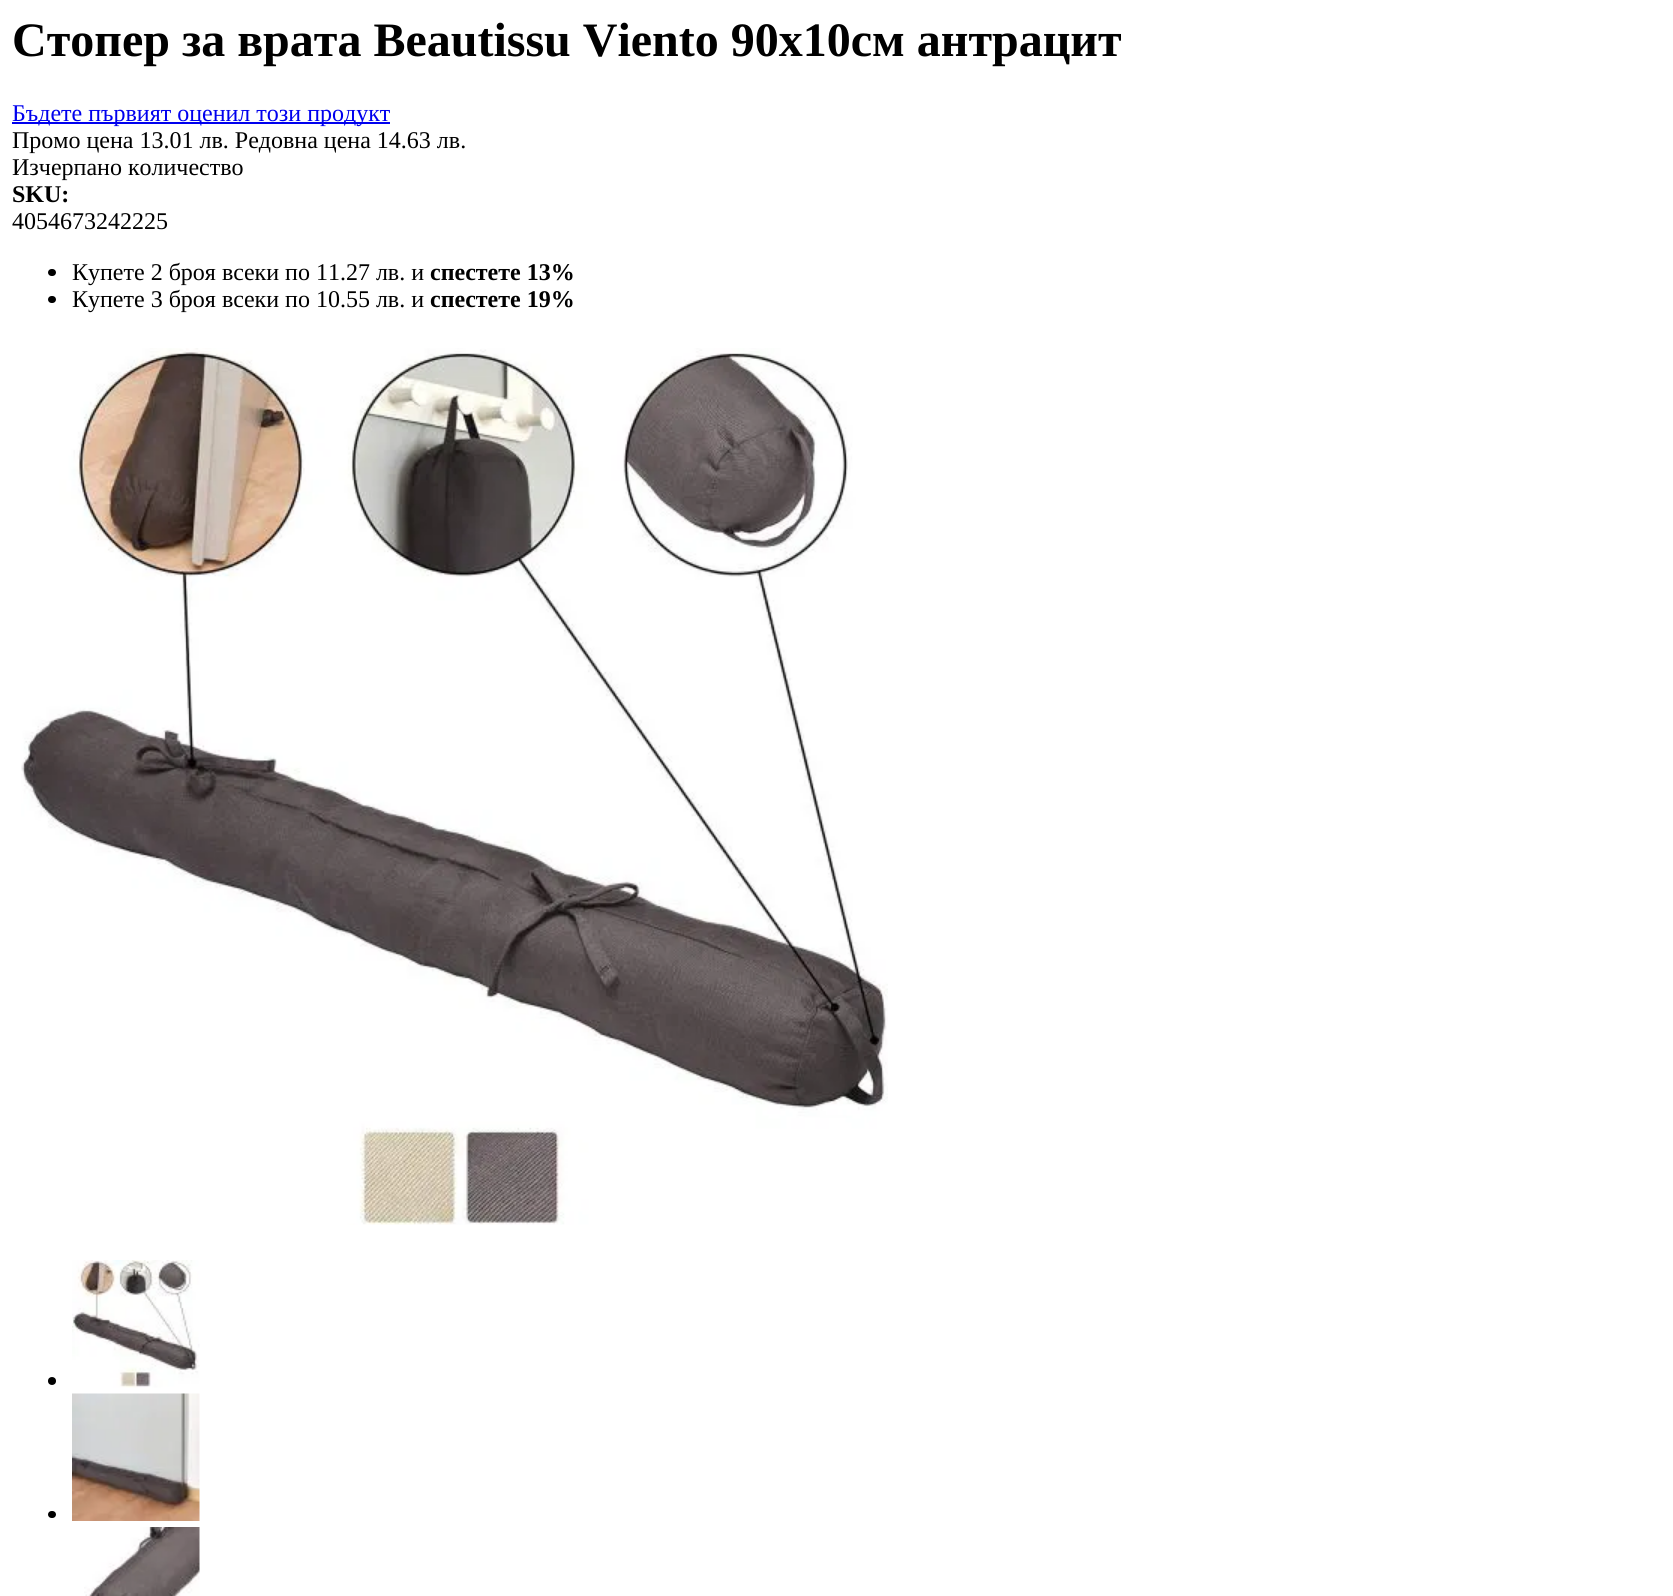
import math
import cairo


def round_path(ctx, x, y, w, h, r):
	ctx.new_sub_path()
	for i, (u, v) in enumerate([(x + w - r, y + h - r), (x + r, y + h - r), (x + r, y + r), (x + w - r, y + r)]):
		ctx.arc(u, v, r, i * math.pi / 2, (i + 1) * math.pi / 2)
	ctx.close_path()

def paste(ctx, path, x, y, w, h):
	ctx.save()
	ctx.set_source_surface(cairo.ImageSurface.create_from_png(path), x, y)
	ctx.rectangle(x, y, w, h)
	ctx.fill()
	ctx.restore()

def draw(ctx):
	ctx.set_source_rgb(1, 1, 1)
	ctx.paint()
	ctx.select_font_face('Liberation Serif', cairo.FONT_SLANT_NORMAL, cairo.FONT_WEIGHT_BOLD)
	ctx.set_font_size(48)
	ctx.set_source_rgb(0, 0, 0)
	ctx.move_to(12, 56)
	ctx.show_text('Стопер за врата Beautissu Viento 90х10см антрацит')
	ctx.set_source_rgb(0, 0, 0.933)
	ctx.rectangle(12, 122, 378, 2)
	ctx.fill()
	ctx.select_font_face('Liberation Serif')
	ctx.set_font_size(24)
	ctx.move_to(12, 121)
	ctx.show_text('Бъдете първият оценил този продукт')
	ctx.set_source_rgb(0, 0, 0)
	ctx.move_to(12, 148)
	ctx.show_text('Промо цена 13.01 лв. Редовна цена 14.63 лв.')
	ctx.move_to(12, 175)
	ctx.show_text('Изчерпано количество')
	ctx.select_font_face('Liberation Serif', cairo.FONT_SLANT_NORMAL, cairo.FONT_WEIGHT_BOLD)
	ctx.move_to(12, 202)
	ctx.show_text('SKU:')
	ctx.select_font_face('Liberation Serif')
	ctx.move_to(12, 229)
	ctx.show_text('4054673242225')
	round_path(ctx, 48, 269, 8, 7, 3.5)
	ctx.fill()
	ctx.move_to(72, 280)
	ctx.show_text('Купете 2 броя всеки по 11.27 лв. и')
	ctx.select_font_face('Liberation Serif', cairo.FONT_SLANT_NORMAL, cairo.FONT_WEIGHT_BOLD)
	ctx.move_to(430, 280)
	ctx.show_text('спестете 13%')
	round_path(ctx, 48, 296, 8, 7, 3.5)
	ctx.fill()
	ctx.select_font_face('Liberation Serif')
	ctx.move_to(72, 307)
	ctx.show_text('Купете 3 броя всеки по 10.55 лв. и')
	ctx.select_font_face('Liberation Serif', cairo.FONT_SLANT_NORMAL, cairo.FONT_WEIGHT_BOLD)
	ctx.move_to(430, 307)
	ctx.show_text('спестете 19%')
	paste(ctx, 'media/1.png', 21, 348, 867, 877)
	ctx.arc(52, 1381, 4, 0, 2 * math.pi)
	ctx.fill()
	paste(ctx, 'media/2.png', 72, 1260, 128, 128)
	round_path(ctx, 48, 1511, 8, 7, 3.5)
	ctx.fill()
	paste(ctx, 'media/3.png', 72, 1393, 128, 128)
	paste(ctx, 'media/4.png', 84, 1527, 116, 69)


surface = cairo.ImageSurface(cairo.FORMAT_RGB24, 1673, 1596)
ctx = cairo.Context(surface)
options = cairo.FontOptions()
options.set_hint_metrics(cairo.HINT_METRICS_OFF)
options.set_hint_style(cairo.HINT_STYLE_NONE)
ctx.set_font_options(options)
ctx.set_miter_limit(4)
draw(ctx)
surface.write_to_png('image.png')
